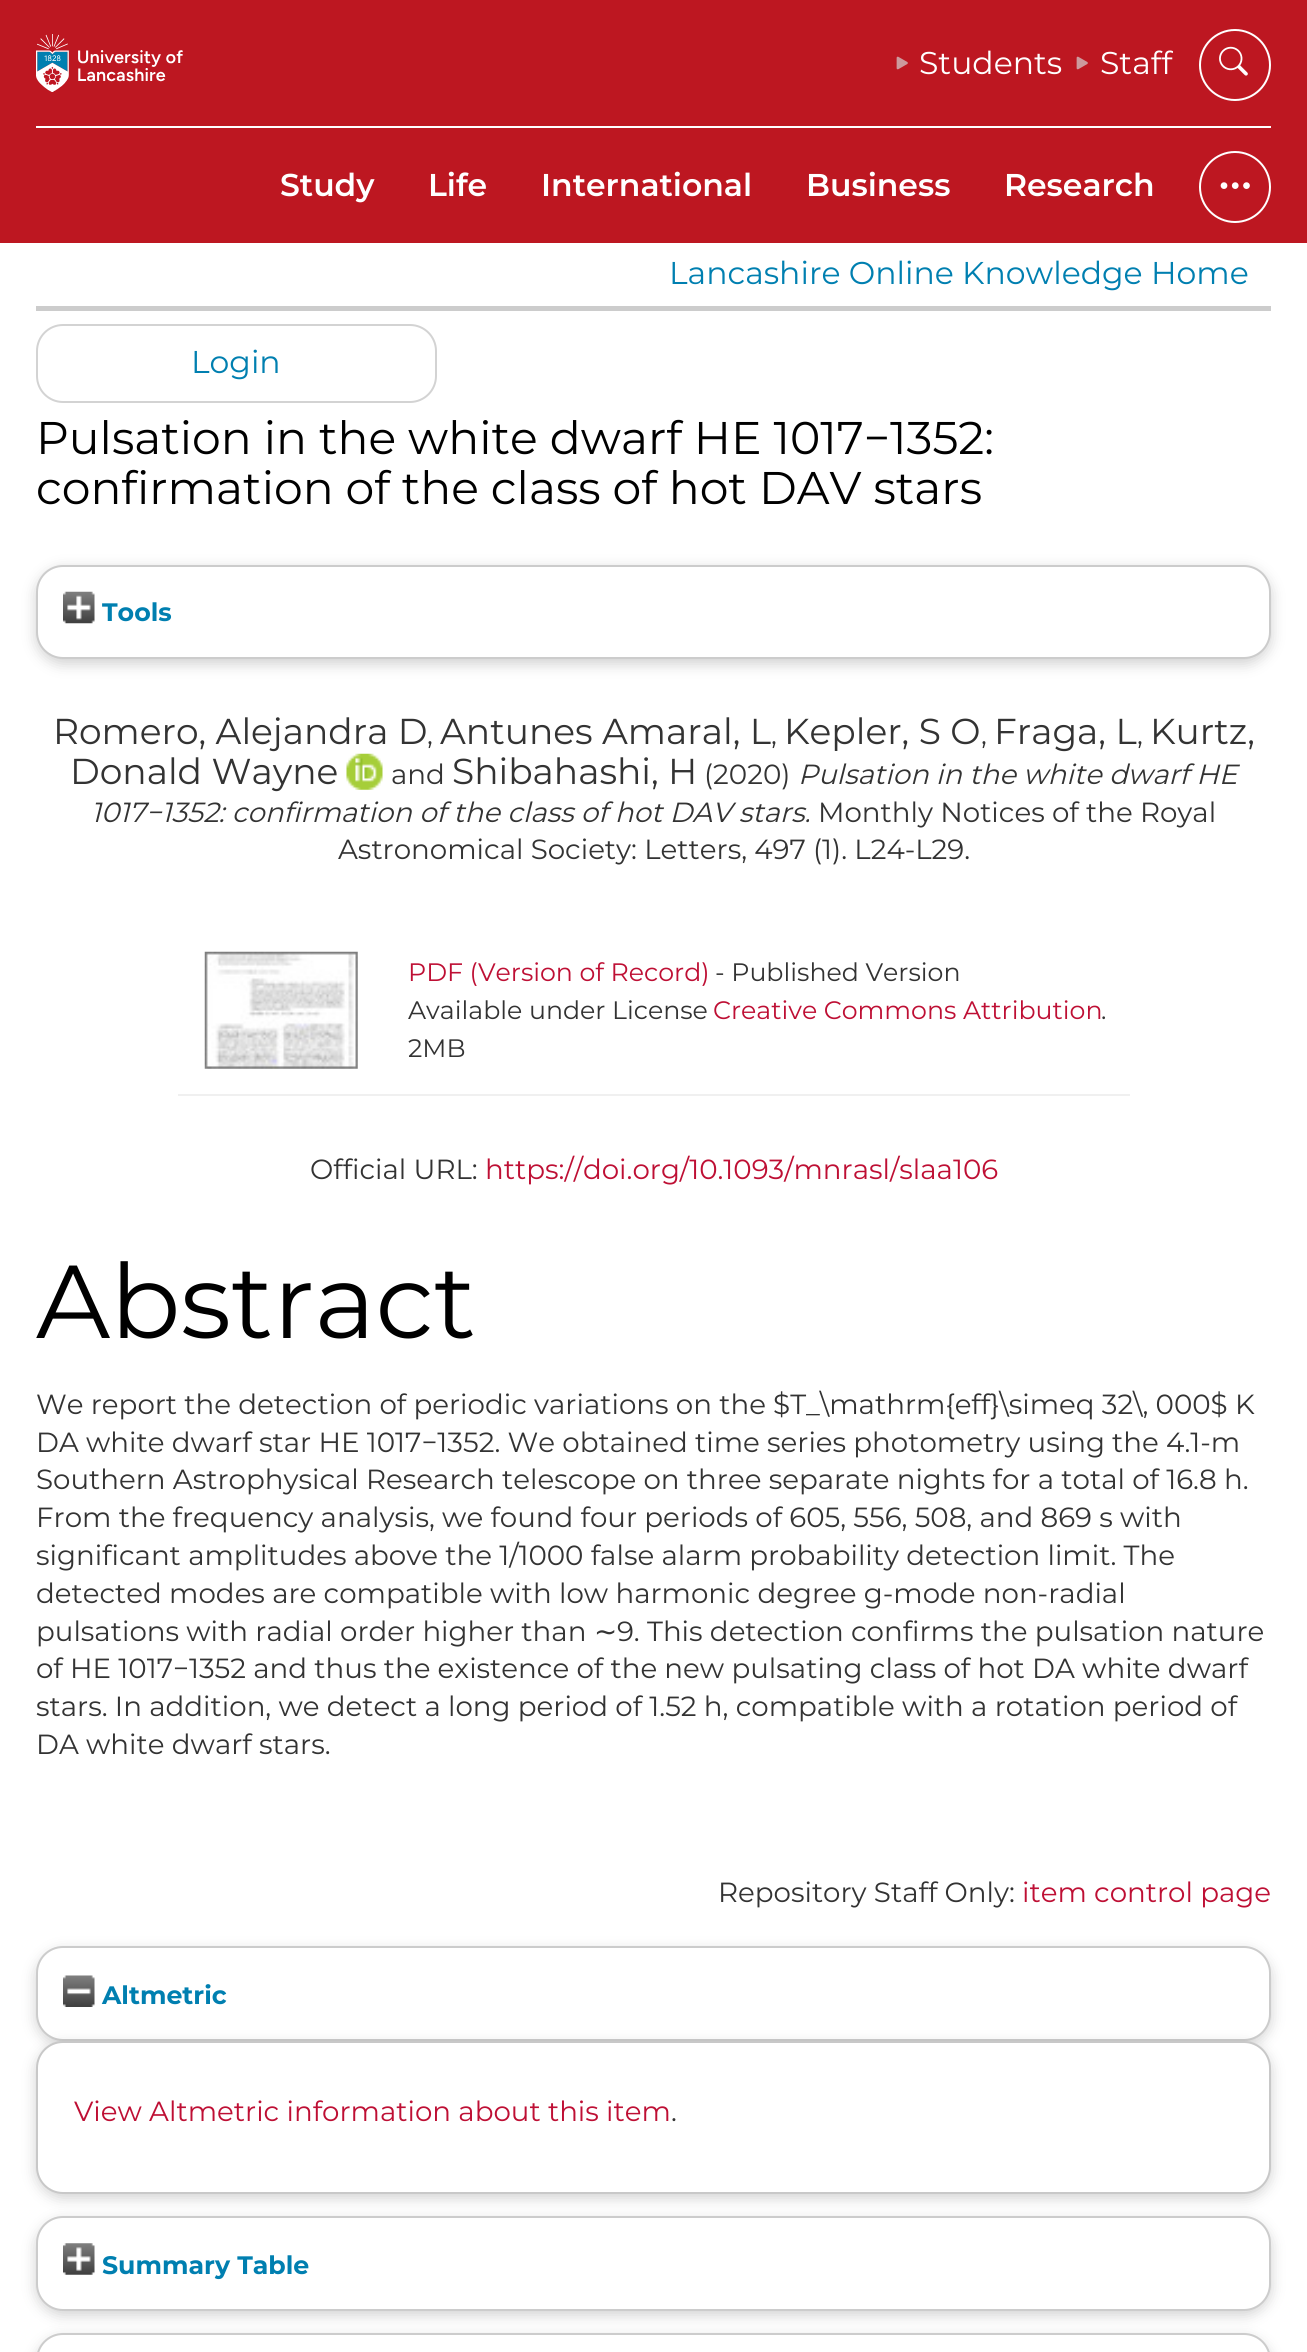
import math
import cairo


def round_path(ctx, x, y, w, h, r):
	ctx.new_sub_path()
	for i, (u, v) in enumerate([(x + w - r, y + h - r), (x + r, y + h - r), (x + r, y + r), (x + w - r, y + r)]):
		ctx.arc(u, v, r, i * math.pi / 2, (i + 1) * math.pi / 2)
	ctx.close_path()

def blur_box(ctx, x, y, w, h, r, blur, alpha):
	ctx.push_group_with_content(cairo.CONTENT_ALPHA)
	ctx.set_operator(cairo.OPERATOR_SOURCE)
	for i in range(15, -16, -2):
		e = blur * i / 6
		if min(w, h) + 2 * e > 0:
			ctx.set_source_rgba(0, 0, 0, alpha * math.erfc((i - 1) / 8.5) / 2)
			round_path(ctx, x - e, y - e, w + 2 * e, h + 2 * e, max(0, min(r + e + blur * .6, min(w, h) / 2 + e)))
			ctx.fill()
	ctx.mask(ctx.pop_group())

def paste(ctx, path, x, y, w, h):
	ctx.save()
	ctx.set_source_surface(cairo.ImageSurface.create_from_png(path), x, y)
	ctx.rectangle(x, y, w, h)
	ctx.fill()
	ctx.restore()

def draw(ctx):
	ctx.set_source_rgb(1, 1, 1)
	ctx.paint()
	ctx.set_source_rgb(0.741, 0.09, 0.129)
	ctx.rectangle(0, 0, 1307, 243)
	ctx.fill()
	paste(ctx, 'media/1.png', 36, 34, 147, 58)
	paste(ctx, 'media/2.png', 896, 56, 12, 14)
	ctx.select_font_face('Montserrat')
	ctx.set_font_size(31.5)
	ctx.set_source_rgb(1, 1, 1)
	ctx.move_to(919, 74)
	ctx.show_text('Students')
	paste(ctx, 'media/2.png', 1076, 56, 12, 14)
	ctx.move_to(1100, 74)
	ctx.show_text('Staff')
	ctx.rectangle(36, 126, 1235, 2)
	ctx.fill()
	ctx.select_font_face('Montserrat SemiBold')
	for x, y, s in [
		(280, 196, 'Study'),
		(428, 196, 'Life'),
		(541, 196, 'International'),
		(806, 196, 'Business'),
		(1004, 196, 'Research'),
	]:
		ctx.move_to(x, y)
		ctx.show_text(s)
	ctx.new_path()
	ctx.arc(1235, 65, 35, 0, 2 * math.pi)
	ctx.stroke()
	paste(ctx, 'media/3.png', 1219, 46, 29, 30)
	ctx.arc(1235, 187, 35, 0, 2 * math.pi)
	ctx.stroke()
	paste(ctx, 'media/4.png', 1220, 182, 30, 7)
	ctx.select_font_face('Montserrat')
	ctx.set_source_rgb(0, 0.498, 0.69)
	ctx.move_to(669, 284)
	ctx.show_text('Lancashire Online Knowledge Home')
	ctx.set_source_rgb(0.8, 0.8, 0.8)
	ctx.rectangle(36, 306, 1235, 5)
	ctx.fill()
	round_path(ctx, 37, 325, 399, 77, 26)
	ctx.set_source_rgb(0.827, 0.827, 0.827)
	ctx.stroke()
	ctx.set_source_rgb(0, 0.498, 0.69)
	ctx.move_to(191, 373)
	ctx.show_text('Login')
	ctx.set_font_size(45.75)
	ctx.set_source_rgb(0, 0, 0)
	ctx.move_to(36, 454)
	ctx.show_text('Pulsation in the white dwarf HE 1017−1352:')
	ctx.move_to(36, 504)
	ctx.show_text('confirmation of the class of hot DAV stars')
	ctx.set_source_rgb(0.392, 0.392, 0.392)
	blur_box(ctx, 36, 569, 1235, 95, 27, 7, 0.3)
	ctx.set_source_rgb(1, 1, 1)
	round_path(ctx, 37, 566, 1233, 92, 26)
	ctx.fill_preserve()
	ctx.set_source_rgb(0.8, 0.8, 0.8)
	ctx.stroke()
	paste(ctx, 'media/5.png', 63, 591, 32, 33)
	ctx.select_font_face('Montserrat', cairo.FONT_SLANT_NORMAL, cairo.FONT_WEIGHT_BOLD)
	ctx.set_font_size(25.25)
	ctx.set_source_rgb(0, 0.498, 0.69)
	ctx.move_to(102, 621)
	ctx.show_text('Tools')
	ctx.select_font_face('Montserrat')
	ctx.set_font_size(36)
	ctx.set_source_rgb(0.2, 0.2, 0.2)
	ctx.move_to(53, 744)
	ctx.show_text('Romero, Alejandra D')
	ctx.set_font_size(27.7)
	ctx.move_to(427, 744)
	ctx.show_text(',')
	ctx.set_font_size(36)
	ctx.move_to(440, 744)
	ctx.show_text('Antunes Amaral, L')
	ctx.set_font_size(27.7)
	ctx.move_to(771, 744)
	ctx.show_text(',')
	ctx.set_font_size(36)
	ctx.move_to(784, 744)
	ctx.show_text('Kepler, S O')
	ctx.set_font_size(27.7)
	ctx.move_to(981, 744)
	ctx.show_text(',')
	ctx.set_font_size(36)
	ctx.move_to(994, 744)
	ctx.show_text('Fraga, L')
	ctx.set_font_size(27.7)
	ctx.move_to(1137, 744)
	ctx.show_text(',')
	ctx.set_font_size(36)
	ctx.move_to(1150, 744)
	ctx.show_text('Kurtz,')
	ctx.move_to(70, 784)
	ctx.show_text('Donald Wayne')
	paste(ctx, 'media/6.png', 346, 753, 37, 37)
	ctx.set_font_size(27.7)
	ctx.move_to(391, 784)
	ctx.show_text('and')
	ctx.set_font_size(36)
	ctx.move_to(452, 784)
	ctx.show_text('Shibahashi, H')
	ctx.set_font_size(27.7)
	ctx.move_to(704, 784)
	ctx.show_text('(2020)')
	ctx.select_font_face('Montserrat', cairo.FONT_SLANT_ITALIC)
	ctx.move_to(798, 784)
	ctx.show_text('Pulsation in the white dwarf HE')
	ctx.move_to(91, 822)
	ctx.show_text('1017−1352: confirmation of the class of hot DAV stars.')
	ctx.select_font_face('Montserrat')
	for x, y, s in [
		(818, 822, 'Monthly Notices of the Royal'),
		(338, 859, 'Astronomical Society: Letters, 497'),
		(813, 859, '(1). L24-L29.'),
	]:
		ctx.move_to(x, y)
		ctx.show_text(s)
	ctx.set_source_rgb(0.941, 0.941, 0.941)
	ctx.rectangle(178, 1094, 952, 2)
	ctx.fill()
	paste(ctx, 'media/7.png', 204, 951, 154, 118)
	ctx.set_font_size(25.25)
	ctx.set_source_rgb(0.745, 0.059, 0.204)
	ctx.move_to(408, 981)
	ctx.show_text('PDF (Version of Record)')
	ctx.set_source_rgb(0.2, 0.2, 0.2)
	ctx.move_to(715, 981)
	ctx.show_text('- Published Version')
	ctx.move_to(408, 1019)
	ctx.show_text('Available under License')
	ctx.set_source_rgb(0.745, 0.059, 0.204)
	ctx.move_to(713, 1019)
	ctx.show_text('Creative Commons Attribution')
	ctx.set_source_rgb(0.2, 0.2, 0.2)
	ctx.move_to(1101, 1019)
	ctx.show_text('.')
	ctx.move_to(408, 1057)
	ctx.show_text('2MB')
	ctx.set_font_size(27.7)
	ctx.move_to(310, 1179)
	ctx.show_text('Official URL:')
	ctx.set_source_rgb(0.745, 0.059, 0.204)
	ctx.move_to(485, 1179)
	ctx.show_text('https://doi.org/10.1093/mnrasl/slaa106')
	ctx.set_font_size(103.5)
	ctx.set_source_rgb(0, 0, 0)
	ctx.move_to(36, 1338)
	ctx.show_text('Abstract')
	ctx.set_font_size(27.7)
	ctx.set_source_rgb(0.2, 0.2, 0.2)
	for x, y, s in [
		(36, 1414, 'We report the detection of periodic variations on the $T_\\mathrm{eff}\\simeq 32\\, 000$ K'),
		(36, 1452, 'DA white dwarf star HE 1017−1352. We obtained time series photometry using the 4.1-m'),
		(36, 1489, 'Southern Astrophysical Research telescope on three separate nights for a total of 16.8 h.'),
		(36, 1527, 'From the frequency analysis, we found four periods of 605, 556, 508, and 869 s with'),
		(36, 1565, 'significant amplitudes above the 1/1000 false alarm probability detection limit. The'),
		(36, 1603, 'detected modes are compatible with low harmonic degree g-mode non-radial'),
		(36, 1641, 'pulsations with radial order higher than'),
	]:
		ctx.move_to(x, y)
		ctx.show_text(s)
	ctx.select_font_face('DejaVu Sans')
	ctx.move_to(594, 1641)
	ctx.show_text('∼')
	ctx.select_font_face('Montserrat')
	for x, y, s in [
		(617, 1641, '9. This detection confirms the pulsation nature'),
		(36, 1678, 'of HE 1017−1352 and thus the existence of the new pulsating class of hot DA white dwarf'),
		(36, 1716, 'stars. In addition, we detect a long period of 1.52 h, compatible with a rotation period of'),
		(36, 1754, 'DA white dwarf stars.'),
		(718, 1902, 'Repository Staff Only:'),
	]:
		ctx.move_to(x, y)
		ctx.show_text(s)
	ctx.set_source_rgb(0.745, 0.059, 0.204)
	ctx.move_to(1022, 1902)
	ctx.show_text('item control page')
	ctx.set_source_rgb(0.392, 0.392, 0.392)
	blur_box(ctx, 36, 1951, 1235, 94, 27, 7, 0.3)
	ctx.set_source_rgb(1, 1, 1)
	round_path(ctx, 37, 1947, 1233, 93, 26)
	ctx.fill_preserve()
	ctx.set_source_rgb(0.8, 0.8, 0.8)
	ctx.stroke()
	paste(ctx, 'media/8.png', 63, 1975, 32, 32)
	ctx.select_font_face('Montserrat', cairo.FONT_SLANT_NORMAL, cairo.FONT_WEIGHT_BOLD)
	ctx.set_font_size(25.25)
	ctx.set_source_rgb(0, 0.498, 0.69)
	ctx.move_to(102, 2004)
	ctx.show_text('Altmetric')
	ctx.set_source_rgb(0.392, 0.392, 0.392)
	blur_box(ctx, 36, 2045, 1235, 153, 27, 7, 0.3)
	ctx.set_source_rgb(1, 1, 1)
	round_path(ctx, 37, 2042, 1233, 151, 26)
	ctx.fill_preserve()
	ctx.set_source_rgb(0.784, 0.784, 0.784)
	ctx.stroke()
	ctx.select_font_face('Montserrat')
	ctx.set_font_size(27.7)
	ctx.set_source_rgb(0.745, 0.059, 0.204)
	ctx.move_to(74, 2121)
	ctx.show_text('View Altmetric information about this item')
	ctx.set_source_rgb(0.2, 0.2, 0.2)
	ctx.move_to(671, 2121)
	ctx.show_text('.')
	ctx.set_source_rgb(0.392, 0.392, 0.392)
	blur_box(ctx, 36, 2221, 1235, 94, 27, 7, 0.3)
	ctx.set_source_rgb(1, 1, 1)
	round_path(ctx, 37, 2217, 1233, 93, 26)
	ctx.fill_preserve()
	ctx.set_source_rgb(0.8, 0.8, 0.8)
	ctx.stroke()
	paste(ctx, 'media/9.png', 63, 2243, 32, 32)
	ctx.select_font_face('Montserrat', cairo.FONT_SLANT_NORMAL, cairo.FONT_WEIGHT_BOLD)
	ctx.set_font_size(25.25)
	ctx.set_source_rgb(0, 0.498, 0.69)
	ctx.move_to(102, 2274)
	ctx.show_text('Summary Table')
	ctx.set_source_rgb(0.392, 0.392, 0.392)
	blur_box(ctx, 36, 2338, 1235, 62, 27, 7, 0.3)
	ctx.set_source_rgb(1, 1, 1)
	round_path(ctx, 37, 2334, 1233, 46, 26)
	ctx.fill_preserve()
	ctx.set_source_rgb(0.8, 0.8, 0.8)
	ctx.stroke()


surface = cairo.ImageSurface(cairo.FORMAT_RGB24, 1307, 2352)
ctx = cairo.Context(surface)
options = cairo.FontOptions()
options.set_hint_metrics(cairo.HINT_METRICS_OFF)
options.set_hint_style(cairo.HINT_STYLE_NONE)
ctx.set_font_options(options)
ctx.set_miter_limit(4)
draw(ctx)
surface.write_to_png('image.png')
